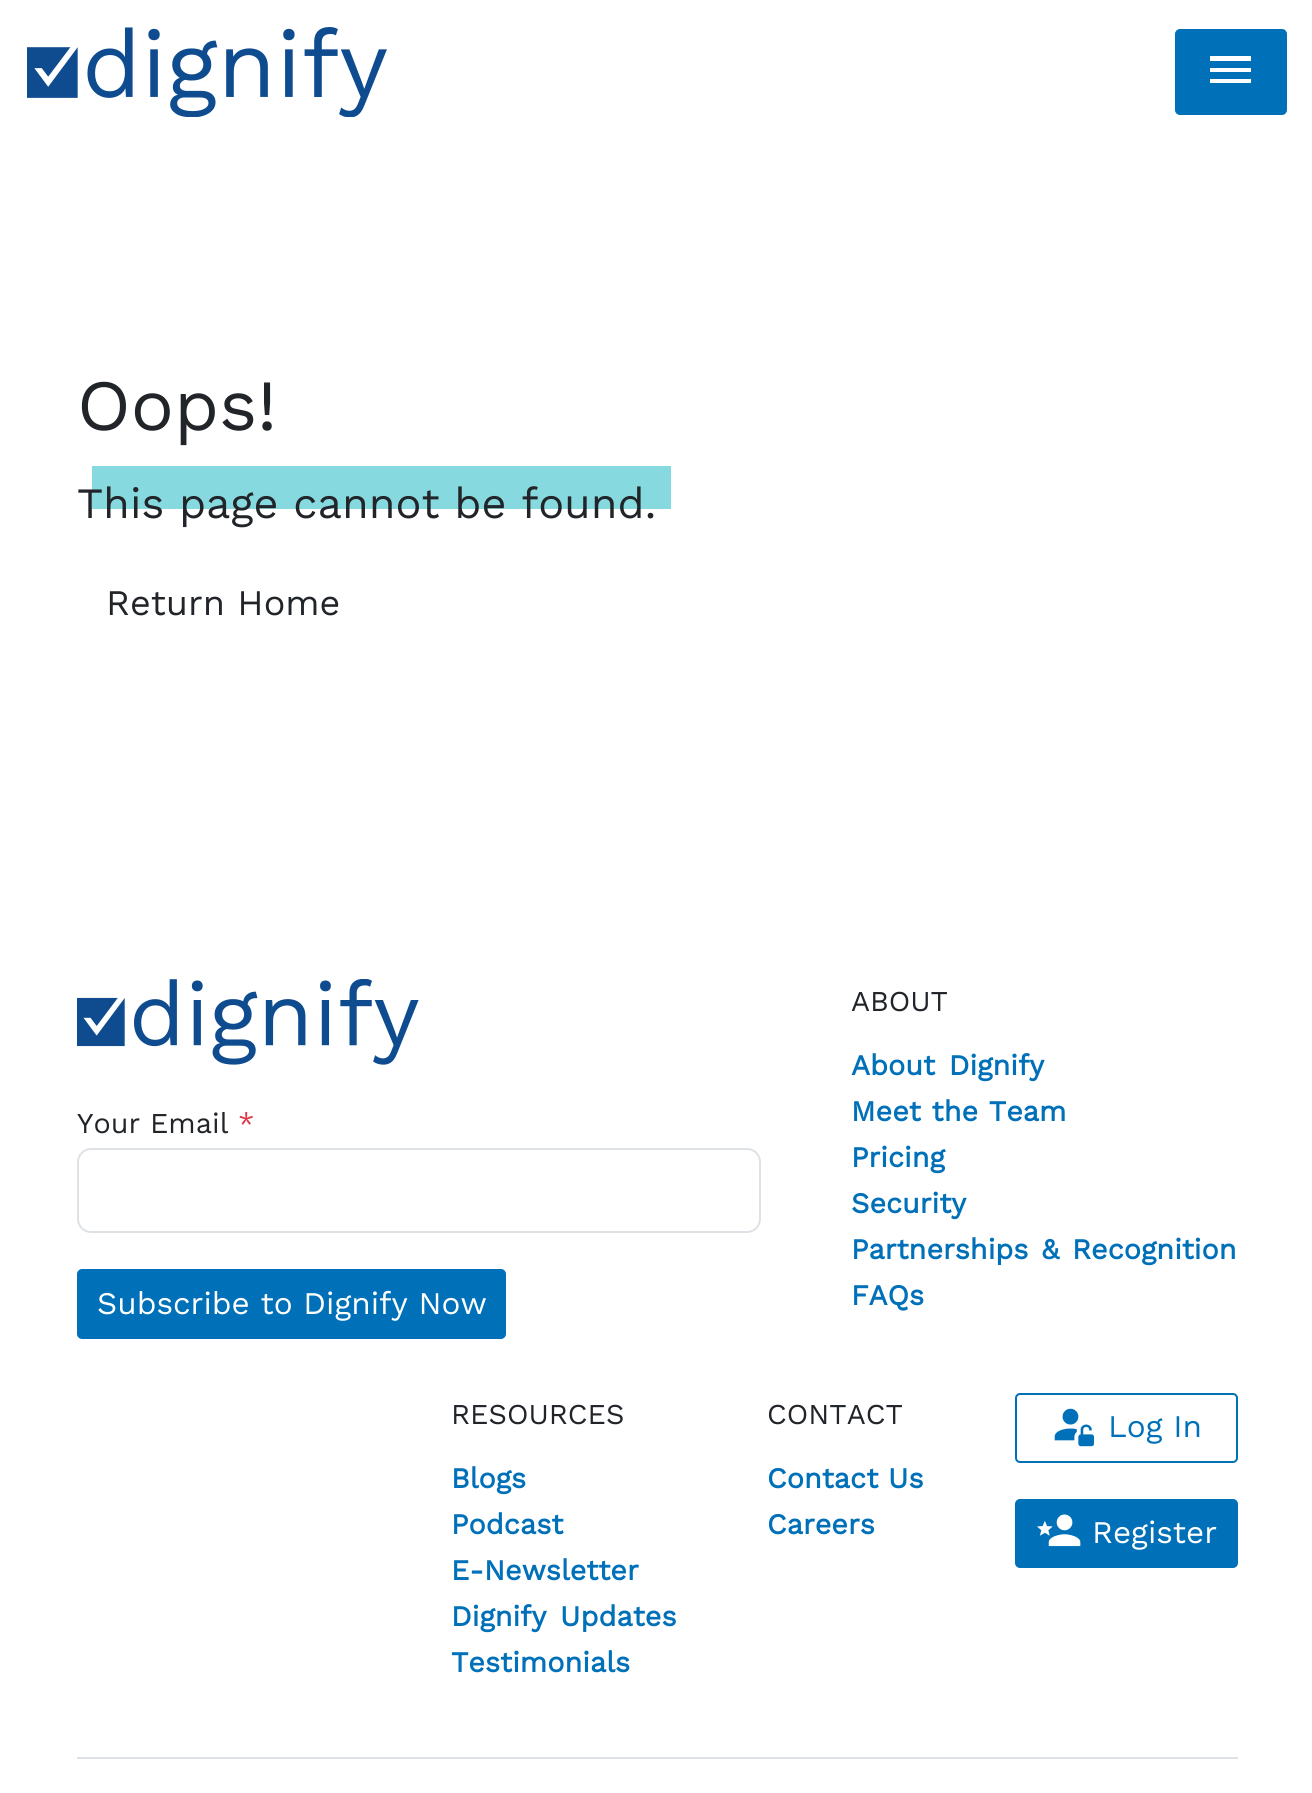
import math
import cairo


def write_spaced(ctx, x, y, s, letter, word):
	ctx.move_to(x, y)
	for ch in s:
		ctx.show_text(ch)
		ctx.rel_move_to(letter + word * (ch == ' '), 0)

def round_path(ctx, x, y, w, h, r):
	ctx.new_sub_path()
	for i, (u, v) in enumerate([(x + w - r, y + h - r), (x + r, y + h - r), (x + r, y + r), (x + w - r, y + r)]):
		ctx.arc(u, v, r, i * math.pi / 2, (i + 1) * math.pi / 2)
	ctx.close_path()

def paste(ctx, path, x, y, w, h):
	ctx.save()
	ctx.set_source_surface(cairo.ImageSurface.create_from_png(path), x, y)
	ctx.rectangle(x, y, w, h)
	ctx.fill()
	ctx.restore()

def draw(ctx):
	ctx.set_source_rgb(1, 1, 1)
	ctx.paint()
	paste(ctx, 'media/1.png', 27, 27, 360, 90)
	ctx.set_source_rgb(0, 0.439, 0.725)
	round_path(ctx, 1176, 30, 110, 84, 4)
	ctx.fill_preserve()
	ctx.stroke()
	ctx.set_source_rgb(1, 1, 1)
	ctx.new_path()
	ctx.move_to(1210, 56)
	ctx.line_to(1251, 56)
	ctx.line_to(1251, 61)
	ctx.line_to(1210, 61)
	ctx.close_path()
	ctx.move_to(1210, 68)
	ctx.line_to(1251, 68)
	ctx.line_to(1251, 72)
	ctx.line_to(1210, 72)
	ctx.close_path()
	ctx.move_to(1210, 79)
	ctx.line_to(1251, 79)
	ctx.line_to(1251, 83)
	ctx.line_to(1210, 83)
	ctx.close_path()
	ctx.fill()
	ctx.select_font_face('Work Sans')
	ctx.set_font_size(72)
	ctx.set_source_rgb(0.129, 0.145, 0.161)
	ctx.move_to(77, 430)
	ctx.show_text('Oops!')
	ctx.set_source_rgb(0.525, 0.851, 0.871)
	ctx.rectangle(92, 466, 579, 43)
	ctx.fill()
	ctx.set_font_size(43.25)
	ctx.set_source_rgb(0.129, 0.145, 0.161)
	ctx.move_to(77, 518)
	ctx.show_text('This page cannot be found.')
	ctx.set_font_size(36)
	ctx.move_to(106, 615)
	ctx.show_text('Return Home')
	paste(ctx, 'media/2.png', 77, 979, 342, 86)
	ctx.set_font_size(28.75)
	ctx.move_to(77, 1133)
	ctx.show_text('Your Email')
	ctx.set_source_rgb(0.863, 0.208, 0.271)
	ctx.move_to(238, 1133)
	ctx.show_text('*')
	round_path(ctx, 78, 1149, 682, 83, 13)
	ctx.set_source_rgb(0.871, 0.886, 0.902)
	ctx.stroke()
	ctx.set_source_rgb(0, 0.439, 0.725)
	round_path(ctx, 78, 1270, 427, 68, 4)
	ctx.fill_preserve()
	ctx.stroke()
	ctx.set_font_size(31.5)
	ctx.set_source_rgb(1, 1, 1)
	ctx.move_to(97, 1314)
	ctx.show_text('Subscribe to Dignify Now')
	ctx.set_font_size(28.75)
	ctx.set_source_rgb(0.129, 0.145, 0.161)
	ctx.move_to(851, 1011)
	ctx.show_text('ABOUT')
	ctx.select_font_face('Work Sans', cairo.FONT_SLANT_NORMAL, cairo.FONT_WEIGHT_BOLD)
	ctx.set_source_rgb(0, 0.439, 0.725)
	write_spaced(ctx, 851, 1075, 'About Dignify', 0, 4)
	write_spaced(ctx, 851, 1121, 'Meet the Team', 0, 1)
	ctx.move_to(851, 1167)
	ctx.show_text('Pricing')
	ctx.move_to(851, 1213)
	ctx.show_text('Security')
	write_spaced(ctx, 851, 1259, 'Partnerships & Recognition', 0, 3)
	ctx.move_to(851, 1305)
	ctx.show_text('FAQs')
	ctx.select_font_face('Work Sans')
	ctx.set_source_rgb(0.129, 0.145, 0.161)
	ctx.move_to(451, 1424)
	ctx.show_text('RESOURCES')
	ctx.select_font_face('Work Sans', cairo.FONT_SLANT_NORMAL, cairo.FONT_WEIGHT_BOLD)
	ctx.set_source_rgb(0, 0.439, 0.725)
	for x, y, s in [
		(451, 1488, 'Blogs'),
		(451, 1534, 'Podcast'),
		(451, 1580, 'E-Newsletter'),
	]:
		ctx.move_to(x, y)
		ctx.show_text(s)
	write_spaced(ctx, 451, 1626, 'Dignify Updates', 0, 4)
	ctx.move_to(451, 1672)
	ctx.show_text('Testimonials')
	ctx.select_font_face('Work Sans')
	ctx.set_source_rgb(0.129, 0.145, 0.161)
	ctx.move_to(767, 1424)
	ctx.show_text('CONTACT')
	ctx.select_font_face('Work Sans', cairo.FONT_SLANT_NORMAL, cairo.FONT_WEIGHT_BOLD)
	ctx.set_source_rgb(0, 0.439, 0.725)
	ctx.move_to(767, 1488)
	ctx.show_text('Contact Us')
	ctx.move_to(767, 1534)
	ctx.show_text('Careers')
	round_path(ctx, 1016, 1394, 221, 68, 4)
	ctx.stroke()
	paste(ctx, 'media/3.png', 1054, 1408, 41, 39)
	ctx.select_font_face('Work Sans')
	ctx.set_font_size(31.5)
	ctx.move_to(1108, 1437)
	ctx.show_text('Log In')
	round_path(ctx, 1016, 1500, 221, 67, 4)
	ctx.fill_preserve()
	ctx.stroke()
	paste(ctx, 'media/4.png', 1037, 1514, 44, 33)
	ctx.set_source_rgb(1, 1, 1)
	ctx.move_to(1092, 1543)
	ctx.show_text('Register')
	ctx.set_source_rgb(0.871, 0.886, 0.902)
	ctx.rectangle(77, 1757, 1161, 2)
	ctx.fill()


surface = cairo.ImageSurface(cairo.FORMAT_RGB24, 1312, 1793)
ctx = cairo.Context(surface)
options = cairo.FontOptions()
options.set_hint_metrics(cairo.HINT_METRICS_OFF)
options.set_hint_style(cairo.HINT_STYLE_NONE)
ctx.set_font_options(options)
ctx.set_miter_limit(4)
draw(ctx)
surface.write_to_png('image.png')
